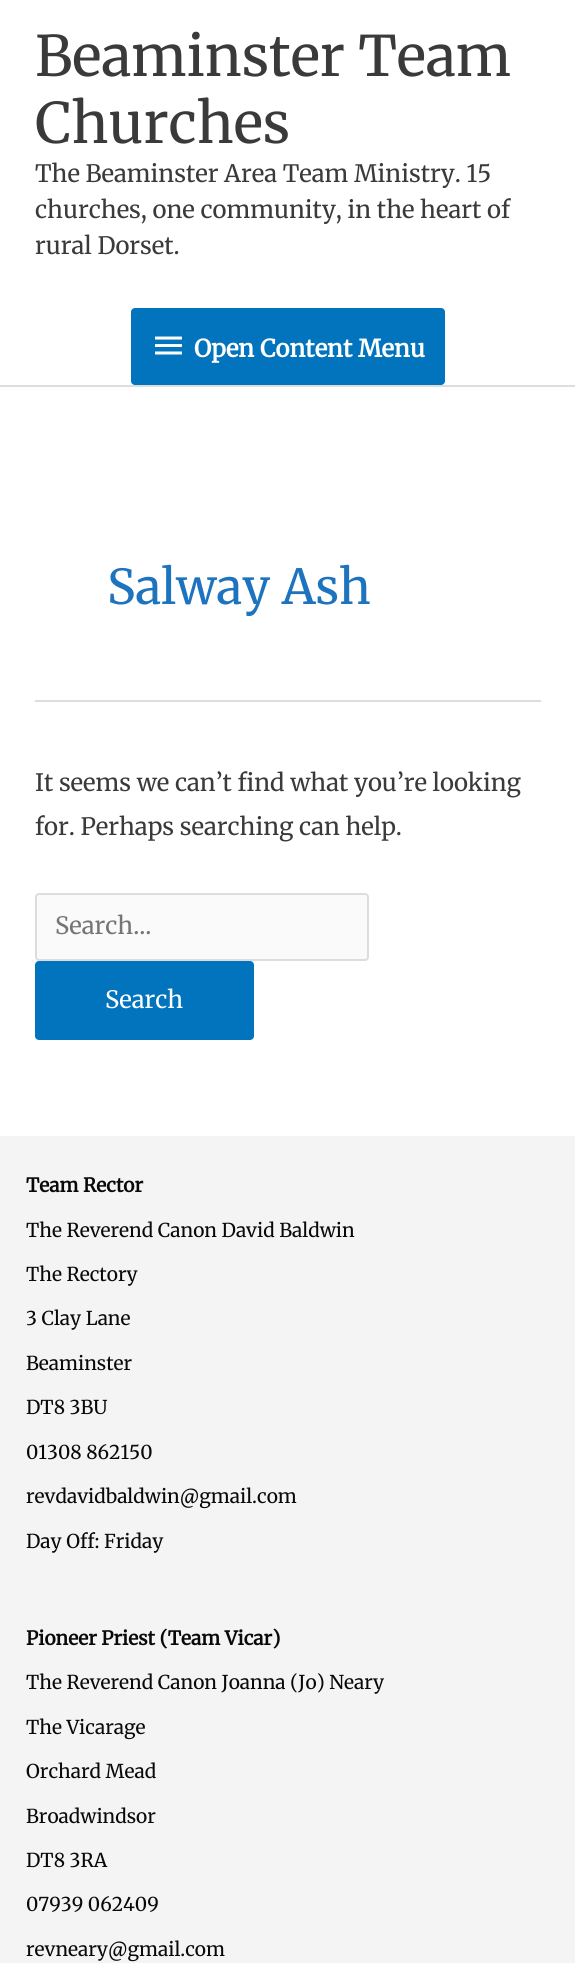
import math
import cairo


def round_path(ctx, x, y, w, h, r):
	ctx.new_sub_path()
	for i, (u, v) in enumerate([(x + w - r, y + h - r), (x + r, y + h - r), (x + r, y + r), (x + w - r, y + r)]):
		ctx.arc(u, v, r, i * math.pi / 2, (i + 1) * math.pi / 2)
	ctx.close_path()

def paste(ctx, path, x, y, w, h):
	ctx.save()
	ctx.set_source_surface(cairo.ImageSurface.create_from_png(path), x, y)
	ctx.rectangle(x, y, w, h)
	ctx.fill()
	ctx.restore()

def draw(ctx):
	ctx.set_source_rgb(1, 1, 1)
	ctx.paint()
	ctx.set_source_rgb(0.867, 0.867, 0.867)
	ctx.rectangle(0, 385, 575, 2)
	ctx.fill()
	ctx.select_font_face('Merriweather Light')
	ctx.set_font_size(55.75)
	ctx.set_source_rgb(0.227, 0.227, 0.227)
	ctx.move_to(35, 76)
	ctx.show_text('Beaminster Team')
	ctx.move_to(35, 143)
	ctx.show_text('Churches')
	ctx.set_font_size(23.9)
	for x, y, s in [
		(35, 182, 'The Beaminster Area Team Ministry. 15'),
		(35, 218, 'churches, one community, in the heart of'),
		(35, 254, 'rural Dorset.'),
	]:
		ctx.move_to(x, y)
		ctx.show_text(s)
	ctx.set_source_rgb(0.008, 0.455, 0.745)
	round_path(ctx, 131, 308, 314, 77, 4)
	ctx.fill()
	paste(ctx, 'media/1.png', 155, 336, 27, 19)
	ctx.select_font_face('Merriweather', cairo.FONT_SLANT_NORMAL, cairo.FONT_WEIGHT_BOLD)
	ctx.set_source_rgb(1, 1, 1)
	ctx.move_to(194, 357)
	ctx.show_text('Open Content Menu')
	ctx.set_source_rgb(0.867, 0.867, 0.867)
	ctx.rectangle(35, 700, 506, 2)
	ctx.fill()
	ctx.select_font_face('Merriweather Light')
	ctx.set_font_size(48)
	ctx.set_source_rgb(0.118, 0.451, 0.745)
	ctx.move_to(107, 604)
	ctx.show_text('Salway Ash')
	ctx.set_font_size(23.9)
	ctx.set_source_rgb(0.227, 0.227, 0.227)
	ctx.move_to(35, 791)
	ctx.show_text('It seems we can’t find what you’re looking')
	ctx.move_to(35, 835)
	ctx.show_text('for. Perhaps searching can help.')
	ctx.set_source_rgb(0.98, 0.98, 0.98)
	round_path(ctx, 36, 894, 332, 66, 3)
	ctx.fill_preserve()
	ctx.set_source_rgb(0.867, 0.867, 0.867)
	ctx.stroke()
	ctx.set_source_rgb(0.459, 0.459, 0.459)
	ctx.move_to(55, 934)
	ctx.show_text('Search...')
	ctx.set_source_rgb(0.008, 0.455, 0.745)
	round_path(ctx, 35, 961, 219, 79, 4)
	ctx.fill()
	ctx.set_source_rgb(1, 1, 1)
	ctx.move_to(105, 1008)
	ctx.show_text('Search')
	ctx.set_source_rgb(0.957, 0.957, 0.957)
	ctx.rectangle(0, 1136, 575, 827)
	ctx.fill()
	ctx.select_font_face('Merriweather', cairo.FONT_SLANT_NORMAL, cairo.FONT_WEIGHT_BOLD)
	ctx.set_font_size(19.1)
	ctx.set_source_rgb(0.039, 0.039, 0.039)
	ctx.move_to(26, 1192)
	ctx.show_text('Team Rector')
	ctx.select_font_face('Merriweather Light')
	for x, y, s in [
		(26, 1237, 'The Reverend Canon David Baldwin'),
		(26, 1281, 'The Rectory'),
		(26, 1325, '3 Clay Lane'),
		(26, 1370, 'Beaminster'),
		(26, 1414, 'DT8 3BU'),
		(26, 1459, '01308 862150'),
		(26, 1503, 'revdavidbaldwin@gmail.com'),
		(26, 1548, 'Day Off: Friday'),
	]:
		ctx.move_to(x, y)
		ctx.show_text(s)
	ctx.select_font_face('Merriweather', cairo.FONT_SLANT_NORMAL, cairo.FONT_WEIGHT_BOLD)
	ctx.move_to(26, 1645)
	ctx.show_text('Pioneer Priest (Team Vicar)')
	ctx.select_font_face('Merriweather Light')
	for x, y, s in [
		(26, 1689, 'The Reverend Canon Joanna (Jo) Neary'),
		(26, 1734, 'The Vicarage'),
		(26, 1778, 'Orchard Mead'),
		(26, 1823, 'Broadwindsor'),
		(26, 1867, 'DT8 3RA'),
		(26, 1911, '07939 062409'),
		(26, 1956, 'revneary@gmail.com'),
	]:
		ctx.move_to(x, y)
		ctx.show_text(s)


surface = cairo.ImageSurface(cairo.FORMAT_RGB24, 575, 1963)
ctx = cairo.Context(surface)
options = cairo.FontOptions()
options.set_hint_metrics(cairo.HINT_METRICS_OFF)
options.set_hint_style(cairo.HINT_STYLE_NONE)
ctx.set_font_options(options)
ctx.set_miter_limit(4)
draw(ctx)
surface.write_to_png('image.png')
